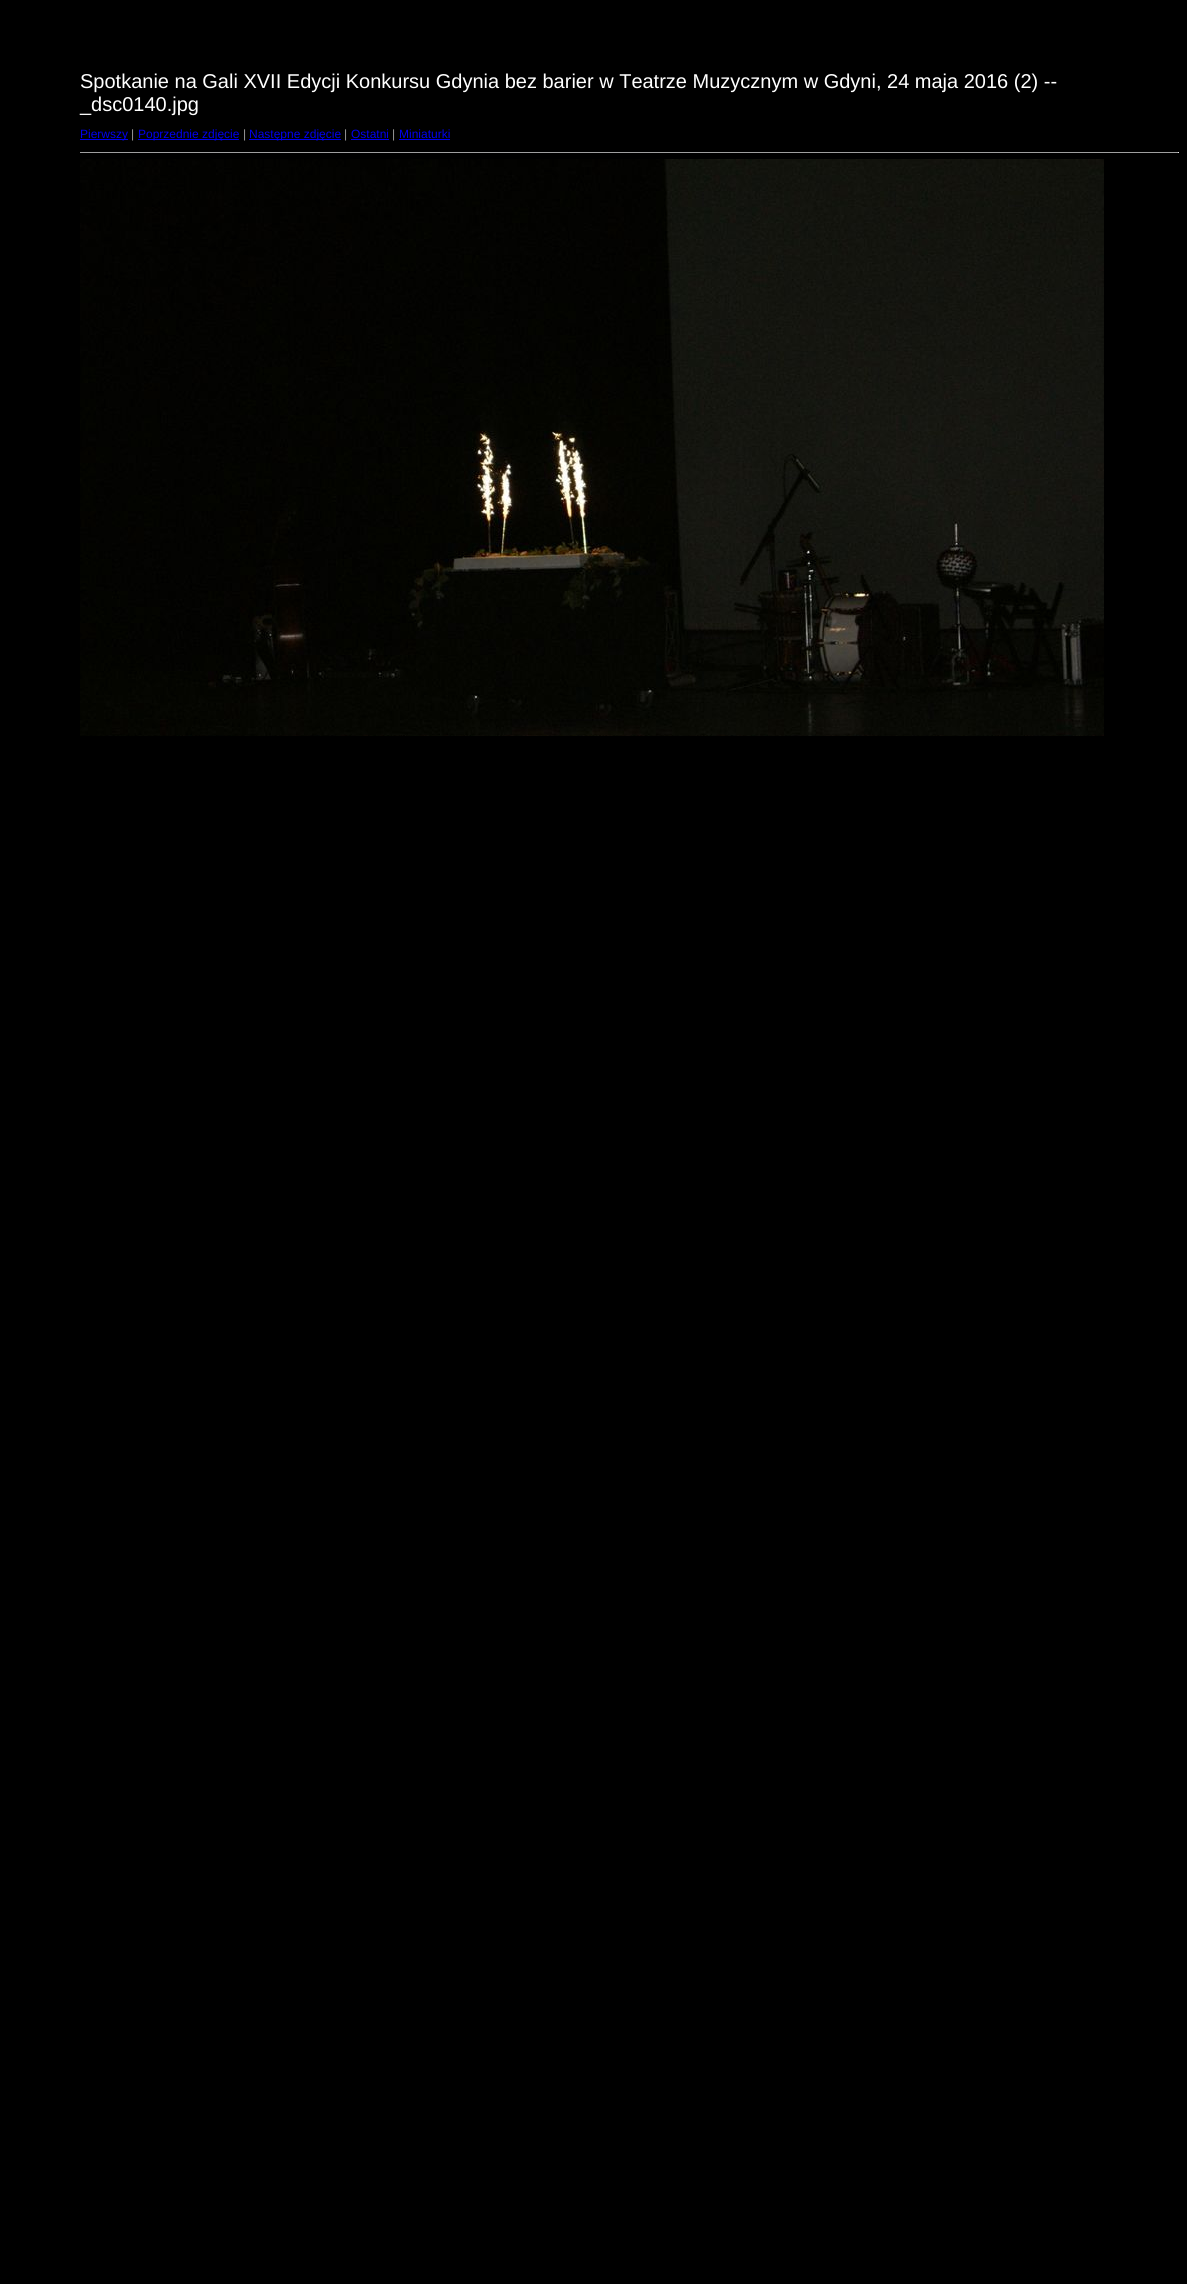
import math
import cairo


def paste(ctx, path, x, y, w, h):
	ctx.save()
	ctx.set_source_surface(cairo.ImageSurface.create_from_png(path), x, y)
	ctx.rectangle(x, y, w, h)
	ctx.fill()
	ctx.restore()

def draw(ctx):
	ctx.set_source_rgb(0, 0, 0)
	ctx.paint()
	ctx.select_font_face('Liberation Sans')
	ctx.set_font_size(20)
	ctx.set_source_rgb(1, 1, 1)
	ctx.move_to(80, 88)
	ctx.show_text('Spotkanie na Gali XVII Edycji Konkursu Gdynia bez barier w Teatrze Muzycznym w Gdyni, 24 maja 2016 (2) --')
	ctx.move_to(80, 111)
	ctx.show_text('_dsc0140.jpg')
	ctx.set_source_rgb(0, 0, 0.933)
	ctx.rectangle(80, 139, 48, 1)
	ctx.fill()
	ctx.set_font_size(12)
	ctx.move_to(80, 138)
	ctx.show_text('Pierwszy')
	ctx.set_source_rgb(0.6, 0.6, 0.6)
	ctx.move_to(131, 138)
	ctx.show_text('|')
	ctx.set_source_rgb(0, 0, 0.933)
	ctx.rectangle(138, 139, 101, 1)
	ctx.fill()
	ctx.move_to(138, 138)
	ctx.show_text('Poprzednie zdjęcie')
	ctx.set_source_rgb(0.6, 0.6, 0.6)
	ctx.move_to(243, 138)
	ctx.show_text('|')
	ctx.set_source_rgb(0, 0, 0.933)
	ctx.rectangle(249, 139, 92, 1)
	ctx.fill()
	ctx.move_to(249, 138)
	ctx.show_text('Następne zdjęcie')
	ctx.set_source_rgb(0.6, 0.6, 0.6)
	ctx.move_to(344, 138)
	ctx.show_text('|')
	ctx.set_source_rgb(0, 0, 0.933)
	ctx.move_to(351, 138)
	ctx.show_text('Ostatni')
	ctx.rectangle(351, 139, 38, 1)
	ctx.fill()
	ctx.set_source_rgb(0.6, 0.6, 0.6)
	ctx.move_to(392, 138)
	ctx.show_text('|')
	ctx.set_source_rgb(0, 0, 0.933)
	ctx.move_to(399, 138)
	ctx.show_text('Miniaturki')
	ctx.rectangle(399, 139, 51, 1)
	ctx.fill()
	ctx.set_source_rgb(0.624, 0.624, 0.624)
	ctx.rectangle(80, 152, 1099, 1)
	ctx.fill()
	ctx.set_source_rgb(0.933, 0.933, 0.933)
	ctx.rectangle(1178, 152, 1, 1)
	ctx.fill()
	paste(ctx, 'media/1.png', 80, 159, 1024, 577)


surface = cairo.ImageSurface(cairo.FORMAT_RGB24, 1187, 2284)
ctx = cairo.Context(surface)
options = cairo.FontOptions()
options.set_hint_metrics(cairo.HINT_METRICS_OFF)
options.set_hint_style(cairo.HINT_STYLE_NONE)
ctx.set_font_options(options)
ctx.set_miter_limit(4)
draw(ctx)
surface.write_to_png('image.png')
